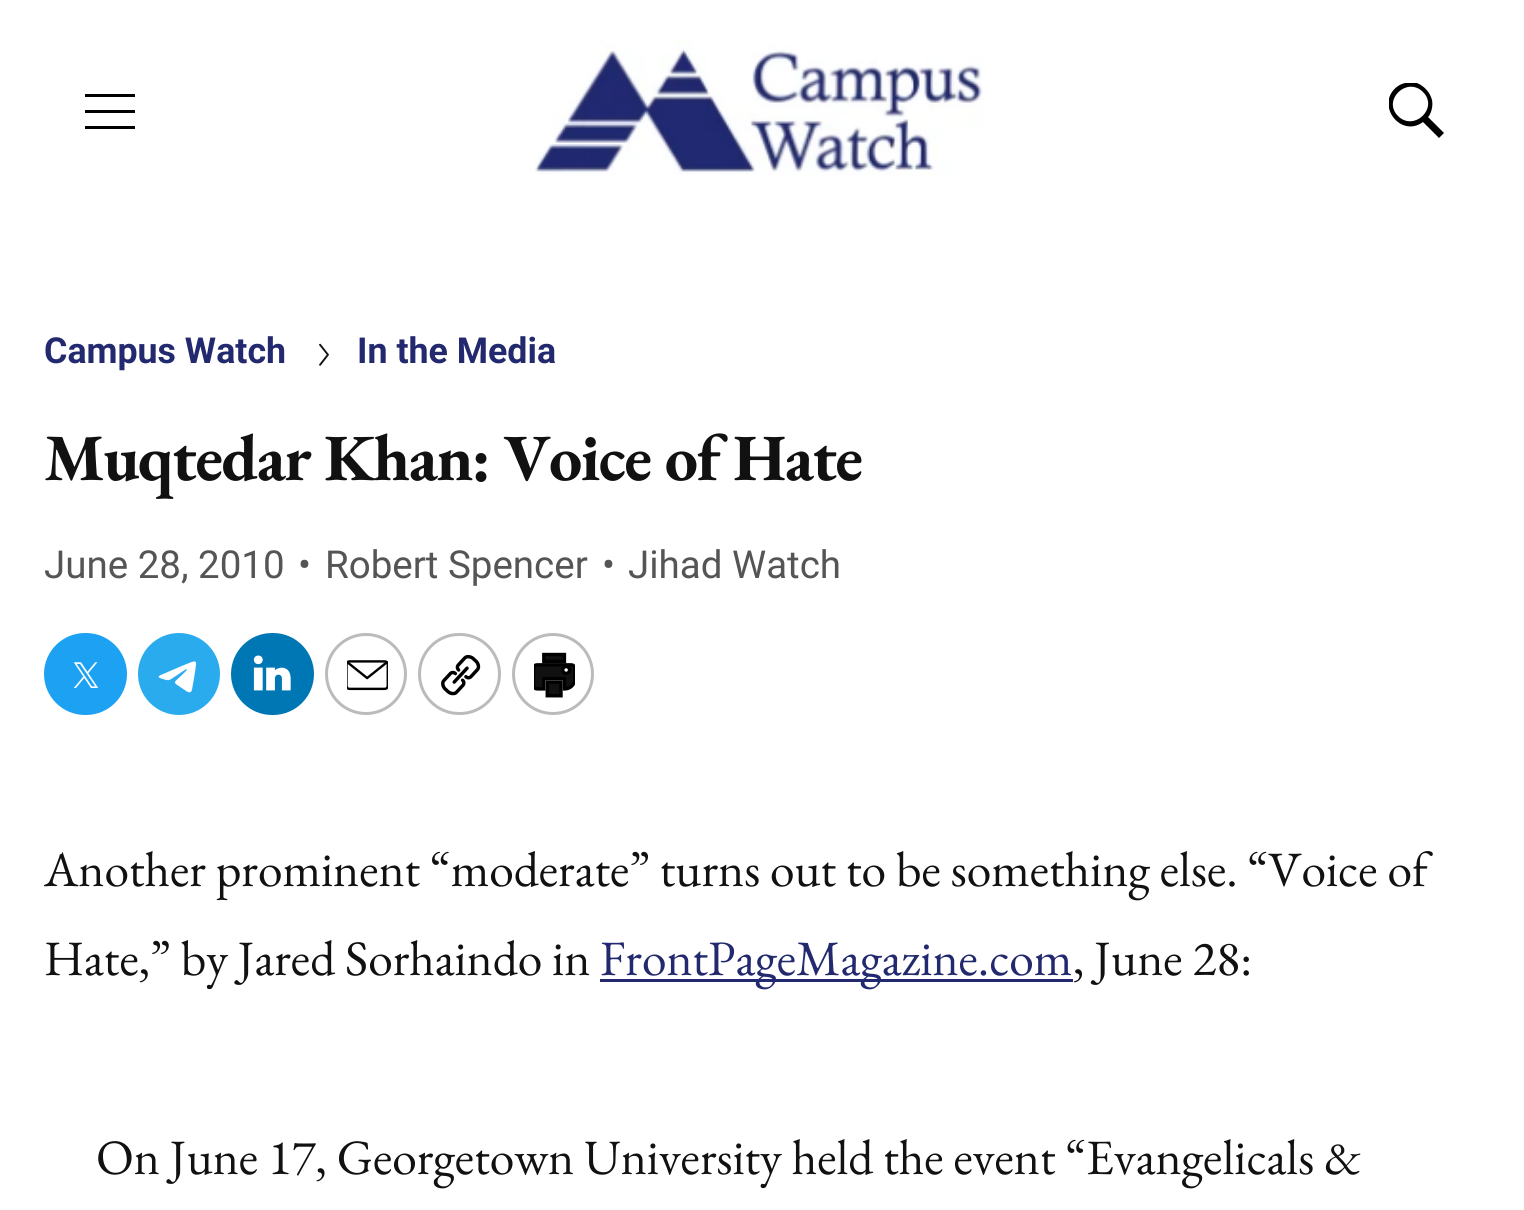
import math
import cairo


def write_spaced(ctx, x, y, s, letter, word):
	ctx.move_to(x, y)
	for ch in s:
		ctx.show_text(ch)
		ctx.rel_move_to(letter + word * (ch == ' '), 0)

def round_path(ctx, x, y, w, h, r):
	ctx.new_sub_path()
	for i, (u, v) in enumerate([(x + w - r, y + h - r), (x + r, y + h - r), (x + r, y + r), (x + w - r, y + r)]):
		ctx.arc(u, v, r, i * math.pi / 2, (i + 1) * math.pi / 2)
	ctx.close_path()

def paste(ctx, path, x, y, w, h):
	ctx.save()
	ctx.set_source_surface(cairo.ImageSurface.create_from_png(path), x, y)
	ctx.rectangle(x, y, w, h)
	ctx.fill()
	ctx.restore()

def draw(ctx):
	ctx.set_source_rgb(1, 1, 1)
	ctx.paint()
	ctx.set_source_rgb(0, 0, 0)
	ctx.set_fill_rule(cairo.FILL_RULE_EVEN_ODD)
	ctx.new_path()
	ctx.move_to(85, 113)
	ctx.line_to(85, 110)
	ctx.line_to(135, 110)
	ctx.line_to(135, 113)
	ctx.close_path()
	ctx.move_to(85, 97)
	ctx.line_to(85, 94)
	ctx.line_to(135, 94)
	ctx.line_to(135, 97)
	ctx.close_path()
	ctx.move_to(85, 129)
	ctx.line_to(85, 126)
	ctx.line_to(135, 126)
	ctx.line_to(135, 129)
	ctx.close_path()
	ctx.fill()
	paste(ctx, 'media/1.png', 535, 38, 448, 137)
	ctx.save()
	ctx.set_fill_rule(cairo.FILL_RULE_WINDING)
	ctx.rectangle(1389, 83, 55, 55)
	ctx.clip()
	ctx.set_fill_rule(cairo.FILL_RULE_EVEN_ODD)
	ctx.new_path()
	ctx.move_to(1429, 116)
	ctx.line_to(1428, 117)
	ctx.line_to(1444, 133)
	ctx.line_to(1439, 138)
	ctx.line_to(1423, 122)
	ctx.curve_to(1400, 139, 1374, 103, 1398, 86)
	ctx.curve_to(1404, 82, 1411, 82, 1417, 83)
	ctx.curve_to(1424, 86, 1430, 92, 1432, 100)
	ctx.curve_to(1433, 105, 1432, 111, 1429, 116)
	ctx.close_path()
	ctx.move_to(1423, 92)
	ctx.curve_to(1407, 76, 1382, 100, 1398, 116)
	ctx.curve_to(1414, 132, 1439, 108, 1423, 92)
	ctx.close_path()
	ctx.fill()
	ctx.restore()
	ctx.select_font_face('Roboto', cairo.FONT_SLANT_NORMAL, cairo.FONT_WEIGHT_BOLD)
	ctx.set_font_size(35.75)
	ctx.set_source_rgb(0.137, 0.161, 0.431)
	ctx.move_to(44, 363)
	ctx.show_text('Campus Watch')
	paste(ctx, 'media/2.png', 319, 343, 10, 23)
	ctx.move_to(357, 363)
	ctx.show_text('In the Media')
	ctx.select_font_face('EB Garamond', cairo.FONT_SLANT_NORMAL, cairo.FONT_WEIGHT_BOLD)
	ctx.set_font_size(66)
	ctx.set_source_rgb(0.067, 0.067, 0.067)
	write_spaced(ctx, 44, 480, 'Muqtedar Khan: Voice of Hate', -1.4, 0)
	ctx.select_font_face('Roboto')
	ctx.set_font_size(38.5)
	ctx.set_source_rgb(0.333, 0.333, 0.333)
	for x, y, s in [
		(44, 578, 'June 28, 2010'),
		(298, 578, '•'),
		(325, 578, 'Robert Spencer'),
		(602, 578, '•'),
		(628, 578, 'Jihad Watch'),
	]:
		ctx.move_to(x, y)
		ctx.show_text(s)
	ctx.set_source_rgb(0.114, 0.631, 0.949)
	round_path(ctx, 44, 633, 83, 82, 41)
	ctx.fill()
	paste(ctx, 'media/3.png', 73, 662, 26, 26)
	ctx.set_source_rgb(0.165, 0.671, 0.933)
	ctx.arc(179, 674, 41, 0, 2 * math.pi)
	ctx.fill()
	paste(ctx, 'media/4.png', 158, 661, 39, 32)
	ctx.set_source_rgb(0, 0.467, 0.71)
	round_path(ctx, 231, 633, 83, 82, 41)
	ctx.fill()
	paste(ctx, 'media/5.png', 253, 655, 38, 36)
	ctx.arc(366, 674, 39.5, 0, 2 * math.pi)
	ctx.set_source_rgb(0.733, 0.733, 0.733)
	ctx.set_line_width(3)
	ctx.stroke()
	paste(ctx, 'media/6.png', 347, 660, 41, 31)
	round_path(ctx, 419.5, 634.5, 80, 79, 39.5)
	ctx.stroke()
	paste(ctx, 'media/7.png', 441, 655, 40, 41)
	ctx.arc(553, 674, 39.5, 0, 2 * math.pi)
	ctx.stroke()
	paste(ctx, 'media/8.png', 534, 652, 41, 46)
	ctx.select_font_face('EB Garamond')
	ctx.set_font_size(49.5)
	ctx.set_source_rgb(0.067, 0.067, 0.067)
	ctx.move_to(44, 886)
	ctx.show_text('Another prominent “moderate” turns out to be something else. “Voice of')
	ctx.move_to(44, 975)
	ctx.show_text('Hate,” by Jared Sorhaindo in')
	ctx.set_source_rgb(0.137, 0.161, 0.431)
	ctx.rectangle(600, 979, 473, 3)
	ctx.fill()
	ctx.move_to(600, 975)
	ctx.show_text('FrontPageMagazine.com')
	ctx.set_source_rgb(0.067, 0.067, 0.067)
	ctx.move_to(1073, 975)
	ctx.show_text(', June 28:')
	ctx.move_to(96, 1174)
	ctx.show_text('On June 17, Georgetown University held the event “Evangelicals &')


surface = cairo.ImageSurface(cairo.FORMAT_RGB24, 1524, 1210)
ctx = cairo.Context(surface)
options = cairo.FontOptions()
options.set_hint_metrics(cairo.HINT_METRICS_OFF)
options.set_hint_style(cairo.HINT_STYLE_NONE)
ctx.set_font_options(options)
ctx.set_miter_limit(4)
draw(ctx)
surface.write_to_png('image.png')
